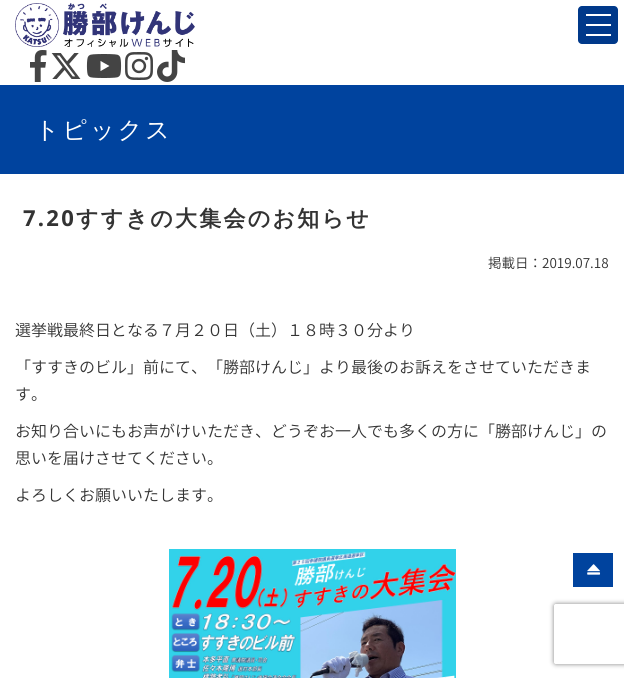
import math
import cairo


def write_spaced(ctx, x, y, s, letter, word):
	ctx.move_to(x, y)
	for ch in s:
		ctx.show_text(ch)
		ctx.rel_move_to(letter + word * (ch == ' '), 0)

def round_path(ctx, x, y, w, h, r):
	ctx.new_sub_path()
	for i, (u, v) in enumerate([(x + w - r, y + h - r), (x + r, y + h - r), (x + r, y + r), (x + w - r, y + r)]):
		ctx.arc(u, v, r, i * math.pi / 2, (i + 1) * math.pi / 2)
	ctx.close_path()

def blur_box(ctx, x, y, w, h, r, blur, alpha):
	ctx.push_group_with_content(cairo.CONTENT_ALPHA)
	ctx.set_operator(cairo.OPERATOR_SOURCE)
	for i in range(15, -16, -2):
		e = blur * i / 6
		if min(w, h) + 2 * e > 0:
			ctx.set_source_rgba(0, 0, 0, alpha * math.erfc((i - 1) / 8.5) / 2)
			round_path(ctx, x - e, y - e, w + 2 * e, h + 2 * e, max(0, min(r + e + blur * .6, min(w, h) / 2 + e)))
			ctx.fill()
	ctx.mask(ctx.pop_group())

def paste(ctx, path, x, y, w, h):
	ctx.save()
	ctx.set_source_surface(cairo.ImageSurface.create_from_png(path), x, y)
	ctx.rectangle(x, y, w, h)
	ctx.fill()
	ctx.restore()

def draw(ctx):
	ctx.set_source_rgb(1, 1, 1)
	ctx.paint()
	paste(ctx, 'media/1.png', 15, 3, 180, 44)
	ctx.set_source_rgb(0, 0.224, 0.541)
	round_path(ctx, 578, 6, 40, 38, 4)
	ctx.fill()
	ctx.set_source_rgb(1, 1, 1)
	ctx.rectangle(586, 24, 25, 2)
	ctx.rectangle(586, 14, 25, 2)
	ctx.rectangle(586, 34, 25, 2)
	ctx.fill()
	paste(ctx, 'media/2.png', 30, 50, 17, 32)
	paste(ctx, 'media/3.png', 51, 53, 30, 26)
	paste(ctx, 'media/4.png', 86, 54, 36, 24)
	paste(ctx, 'media/5.png', 125, 52, 28, 28)
	paste(ctx, 'media/6.png', 157, 50, 28, 32)
	ctx.set_source_rgb(0, 0.263, 0.62)
	ctx.rectangle(0, 85, 624, 89)
	ctx.fill()
	ctx.select_font_face('WenQuanYi Zen Hei Medium')
	ctx.set_font_size(24)
	ctx.set_source_rgb(1, 1, 1)
	write_spaced(ctx, 35, 138, 'トピックス', 3, 0)
	ctx.select_font_face('Open Sans', cairo.FONT_SLANT_NORMAL, cairo.FONT_WEIGHT_BOLD)
	ctx.set_font_size(22)
	ctx.set_source_rgb(0.2, 0.2, 0.2)
	write_spaced(ctx, 23, 226, '7.20', 2.25, 0)
	ctx.select_font_face('WenQuanYi Zen Hei', cairo.FONT_SLANT_NORMAL, cairo.FONT_WEIGHT_BOLD)
	write_spaced(ctx, 76, 226, 'すすきの大集会のお知らせ', 2.25, 0)
	ctx.select_font_face('Noto Sans JP Light')
	ctx.set_font_size(13.5)
	ctx.move_to(488, 268)
	ctx.show_text('掲載日：2019.07.18')
	ctx.set_font_size(16)
	for x, y, s in [
		(15, 336, '選挙戦最終日となる７月２０日（土）１８時３０分より'),
		(15, 373, '「すすきのビル」前にて、「勝部けんじ」より最後のお訴えをさせていただきま'),
		(15, 400, 'す。'),
		(15, 437, 'お知り合いにもお声がけいただき、どうぞお一人でも多くの方に「勝部けんじ」の'),
		(15, 464, '思いを届けさせてください。'),
		(15, 501, 'よろしくお願いいたします。'),
	]:
		ctx.move_to(x, y)
		ctx.show_text(s)
	paste(ctx, 'media/7.png', 169, 549, 287, 129)
	ctx.set_source_rgb(0, 0.263, 0.62)
	ctx.rectangle(573, 553, 40, 34)
	ctx.fill()
	paste(ctx, 'media/8.png', 587, 564, 14, 11)
	ctx.save()
	ctx.set_fill_rule(cairo.FILL_RULE_EVEN_ODD)
	ctx.new_path()
	ctx.move_to(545, 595)
	ctx.line_to(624, 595)
	ctx.line_to(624, 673)
	ctx.line_to(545, 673)
	ctx.close_path()
	ctx.move_to(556, 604)
	ctx.line_to(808, 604)
	ctx.curve_to(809, 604, 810, 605, 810, 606)
	ctx.line_to(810, 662)
	ctx.curve_to(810, 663, 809, 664, 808, 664)
	ctx.line_to(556, 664)
	ctx.curve_to(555, 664, 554, 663, 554, 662)
	ctx.line_to(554, 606)
	ctx.curve_to(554, 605, 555, 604, 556, 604)
	ctx.close_path()
	ctx.clip()
	ctx.set_source_rgb(0.502, 0.502, 0.502)
	blur_box(ctx, 554, 604, 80, 60, 2, 2.5, 1)
	ctx.restore()


surface = cairo.ImageSurface(cairo.FORMAT_RGB24, 624, 678)
ctx = cairo.Context(surface)
options = cairo.FontOptions()
options.set_hint_metrics(cairo.HINT_METRICS_OFF)
options.set_hint_style(cairo.HINT_STYLE_NONE)
ctx.set_font_options(options)
ctx.set_miter_limit(4)
draw(ctx)
surface.write_to_png('image.png')
